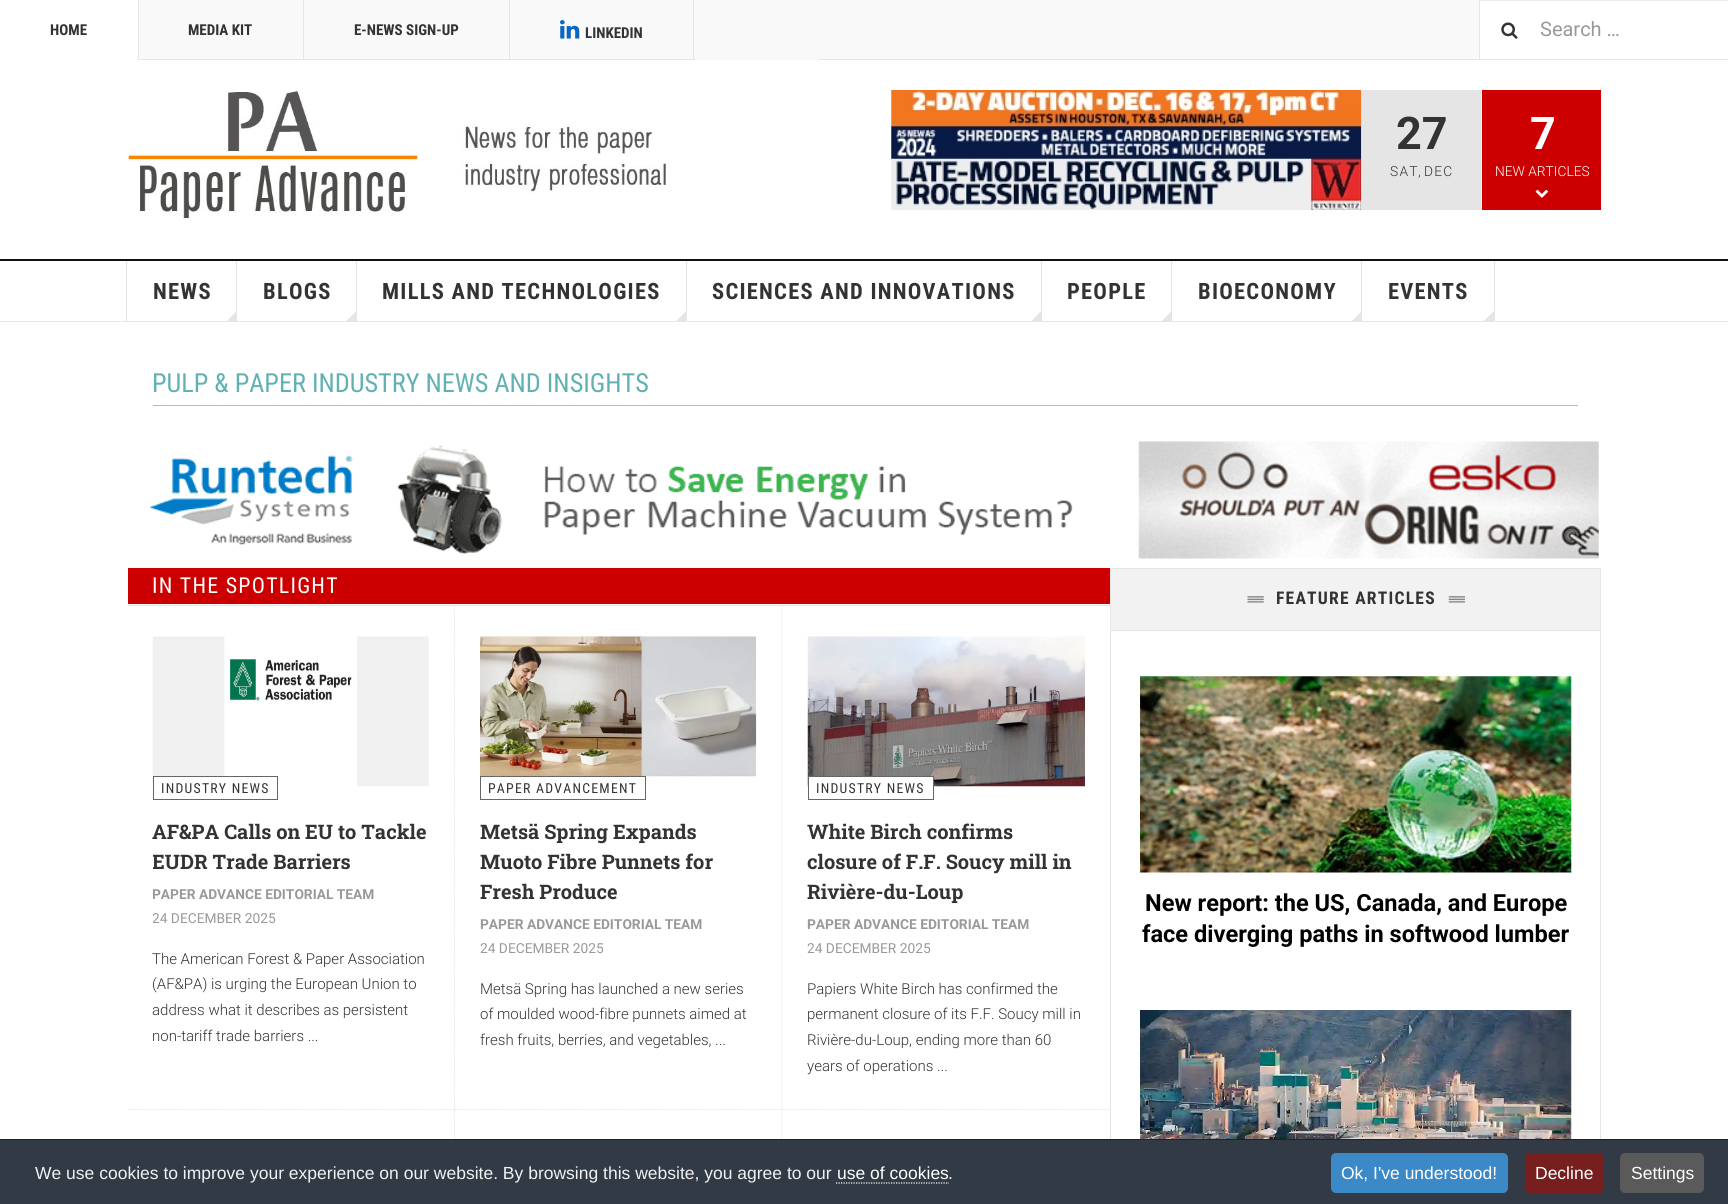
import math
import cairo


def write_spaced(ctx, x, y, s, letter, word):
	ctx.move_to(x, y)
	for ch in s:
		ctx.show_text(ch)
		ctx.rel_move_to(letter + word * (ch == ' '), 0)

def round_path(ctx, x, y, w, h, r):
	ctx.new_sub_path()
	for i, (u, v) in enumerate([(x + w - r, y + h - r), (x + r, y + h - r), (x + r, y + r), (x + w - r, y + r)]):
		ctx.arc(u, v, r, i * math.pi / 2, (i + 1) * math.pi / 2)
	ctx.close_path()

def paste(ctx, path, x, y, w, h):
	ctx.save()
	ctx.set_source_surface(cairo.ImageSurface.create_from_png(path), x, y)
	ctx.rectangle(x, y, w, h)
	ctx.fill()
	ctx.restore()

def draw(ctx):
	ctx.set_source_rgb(1, 1, 1)
	ctx.paint()
	ctx.set_source_rgb(0.973, 0.973, 0.973)
	ctx.rectangle(139, 0, 1340, 59)
	ctx.fill()
	ctx.set_source_rgb(0.898, 0.898, 0.898)
	ctx.rectangle(139, 59, 1589, 1)
	ctx.rectangle(138, 0, 1, 60)
	ctx.fill()
	ctx.select_font_face('Roboto Condensed', cairo.FONT_SLANT_NORMAL, cairo.FONT_WEIGHT_BOLD)
	ctx.set_font_size(15)
	ctx.set_source_rgb(0.2, 0.2, 0.2)
	ctx.move_to(50, 35)
	ctx.show_text('HOME')
	ctx.set_source_rgb(0.898, 0.898, 0.898)
	ctx.rectangle(303, 0, 1, 60)
	ctx.fill()
	ctx.set_source_rgb(0.2, 0.2, 0.2)
	ctx.move_to(188, 35)
	ctx.show_text('MEDIA KIT')
	ctx.set_source_rgb(0.898, 0.898, 0.898)
	ctx.rectangle(509, 0, 1, 60)
	ctx.fill()
	ctx.set_source_rgb(0.2, 0.2, 0.2)
	ctx.move_to(354, 35)
	ctx.show_text('E-NEWS SIGN-UP')
	ctx.set_source_rgb(0.898, 0.898, 0.898)
	ctx.rectangle(693, 0, 1, 60)
	ctx.fill()
	paste(ctx, 'media/1.png', 560, 20, 20, 19)
	ctx.set_source_rgb(0.2, 0.2, 0.2)
	ctx.move_to(585, 38)
	ctx.show_text('LINKEDIN')
	ctx.set_source_rgb(0.973, 0.973, 0.973)
	ctx.rectangle(694, 59, 125, 1)
	ctx.fill()
	paste(ctx, 'media/2.png', 1501, 22, 17, 17)
	ctx.set_source_rgb(0.925, 0.925, 0.925)
	ctx.rectangle(1480, 0, 248, 1)
	ctx.fill()
	ctx.set_source_rgb(0.898, 0.898, 0.898)
	ctx.rectangle(1479, 0, 1, 59)
	ctx.fill()
	ctx.select_font_face('Roboto')
	ctx.set_font_size(20)
	ctx.set_source_rgb(0.6, 0.6, 0.6)
	ctx.move_to(1540, 36)
	ctx.show_text('Search …')
	paste(ctx, 'media/3.png', 127, 91, 539, 129)
	ctx.set_source_rgb(0.898, 0.898, 0.898)
	ctx.rectangle(1361, 90, 120, 120)
	ctx.fill()
	paste(ctx, 'media/4.png', 891, 90, 471, 120)
	ctx.select_font_face('Roboto', cairo.FONT_SLANT_NORMAL, cairo.FONT_WEIGHT_BOLD)
	ctx.set_font_size(45)
	ctx.set_source_rgb(0.2, 0.2, 0.2)
	ctx.move_to(1396, 149)
	ctx.show_text('27')
	ctx.select_font_face('Roboto Light')
	ctx.set_font_size(13.75)
	write_spaced(ctx, 1390, 176, 'SAT', 1.25, 0)
	ctx.move_to(1418, 176)
	ctx.show_text(',')
	write_spaced(ctx, 1424, 176, 'DEC', 1.25, 0)
	ctx.set_source_rgb(0.8, 0, 0)
	ctx.rectangle(1482, 90, 119, 120)
	ctx.fill()
	ctx.set_source_rgb(0.949, 0.949, 0.949)
	ctx.rectangle(1481, 90, 1, 120)
	ctx.fill()
	ctx.select_font_face('Roboto', cairo.FONT_SLANT_NORMAL, cairo.FONT_WEIGHT_BOLD)
	ctx.set_font_size(45)
	ctx.set_source_rgb(1, 1, 1)
	ctx.move_to(1530, 149)
	ctx.show_text('7')
	ctx.select_font_face('Roboto Light')
	ctx.set_font_size(13.75)
	ctx.move_to(1495, 176)
	ctx.show_text('NEW ARTICLES')
	paste(ctx, 'media/5.png', 1535, 189, 13, 9)
	ctx.set_source_rgb(0.067, 0.067, 0.067)
	ctx.new_path()
	ctx.move_to(0, 259)
	ctx.line_to(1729, 259)
	ctx.line_to(1728, 261)
	ctx.line_to(0, 261)
	ctx.close_path()
	ctx.fill()
	ctx.set_source_rgb(0.898, 0.898, 0.898)
	ctx.rectangle(0, 321, 1728, 1)
	ctx.rectangle(126, 261, 1, 60)
	ctx.rectangle(236, 261, 1, 60)
	ctx.fill()
	ctx.select_font_face('Roboto Condensed', cairo.FONT_SLANT_NORMAL, cairo.FONT_WEIGHT_BOLD)
	ctx.set_font_size(22.5)
	ctx.set_source_rgb(0.2, 0.2, 0.2)
	write_spaced(ctx, 153, 299, 'NEWS', 1.25, 0)
	ctx.set_source_rgb(0.898, 0.898, 0.898)
	ctx.new_path()
	ctx.move_to(226, 322)
	ctx.line_to(236.5, 311)
	ctx.line_to(236.5, 322)
	ctx.close_path()
	ctx.fill()
	ctx.rectangle(356, 261, 1, 60)
	ctx.fill()
	ctx.set_source_rgb(0.2, 0.2, 0.2)
	write_spaced(ctx, 263, 299, 'BLOGS', 1.25, 0)
	ctx.set_source_rgb(0.898, 0.898, 0.898)
	ctx.new_path()
	ctx.move_to(345.5, 322)
	ctx.line_to(356.5, 311)
	ctx.line_to(356.5, 322)
	ctx.close_path()
	ctx.fill()
	ctx.rectangle(686, 261, 1, 60)
	ctx.fill()
	ctx.set_source_rgb(0.2, 0.2, 0.2)
	write_spaced(ctx, 382, 299, 'MILLS AND TECHNOLOGIES', 1.25, 0)
	ctx.set_source_rgb(0.898, 0.898, 0.898)
	ctx.new_path()
	ctx.move_to(675.5, 322)
	ctx.line_to(686, 311)
	ctx.line_to(686, 322)
	ctx.close_path()
	ctx.fill()
	ctx.rectangle(1041, 261, 1, 60)
	ctx.fill()
	ctx.set_source_rgb(0.2, 0.2, 0.2)
	write_spaced(ctx, 712, 299, 'SCIENCES AND INNOVATIONS', 1.25, 0)
	ctx.set_source_rgb(0.898, 0.898, 0.898)
	ctx.new_path()
	ctx.move_to(1030.5, 322)
	ctx.line_to(1041, 311)
	ctx.line_to(1041, 322)
	ctx.close_path()
	ctx.fill()
	ctx.rectangle(1171, 261, 1, 60)
	ctx.fill()
	ctx.set_source_rgb(0.2, 0.2, 0.2)
	write_spaced(ctx, 1067, 299, 'PEOPLE', 1.25, 0)
	ctx.set_source_rgb(0.898, 0.898, 0.898)
	ctx.new_path()
	ctx.move_to(1161, 322)
	ctx.line_to(1171.5, 311)
	ctx.line_to(1171.5, 322)
	ctx.close_path()
	ctx.fill()
	ctx.rectangle(1361, 261, 1, 51)
	ctx.fill()
	ctx.set_source_rgb(0.2, 0.2, 0.2)
	write_spaced(ctx, 1198, 299, 'BIOECONOMY', 1.25, 0)
	ctx.set_source_rgb(0.898, 0.898, 0.898)
	ctx.new_path()
	ctx.move_to(1351, 322)
	ctx.line_to(1362, 311)
	ctx.line_to(1362, 322)
	ctx.close_path()
	ctx.fill()
	ctx.rectangle(1494, 261, 1, 60)
	ctx.fill()
	ctx.set_source_rgb(0.2, 0.2, 0.2)
	write_spaced(ctx, 1388, 299, 'EVENTS', 1.25, 0)
	ctx.set_source_rgb(0.898, 0.898, 0.898)
	ctx.new_path()
	ctx.move_to(1483, 322)
	ctx.line_to(1494, 311)
	ctx.line_to(1494, 322)
	ctx.close_path()
	ctx.fill()
	ctx.set_source_rgb(0.725, 0.725, 0.725)
	ctx.rectangle(153, 405, 1425, 1)
	ctx.fill()
	ctx.select_font_face('Roboto Condensed')
	ctx.set_font_size(26.25)
	ctx.set_source_rgb(0.38, 0.694, 0.702)
	ctx.move_to(152, 392)
	ctx.show_text('PULP & PAPER INDUSTRY NEWS AND INSIGHTS')
	paste(ctx, 'media/6.png', 149, 445, 924, 109)
	paste(ctx, 'media/7.png', 1138, 441, 461, 118)
	ctx.set_source_rgb(0.8, 0, 0)
	ctx.rectangle(128, 568, 982, 36)
	ctx.fill()
	ctx.set_font_size(21.9)
	ctx.set_source_rgb(1, 1, 1)
	write_spaced(ctx, 152, 593, 'IN THE SPOTLIGHT', 1.25, 0)
	ctx.set_source_rgb(0.898, 0.898, 0.898)
	ctx.rectangle(128, 605, 982, 1)
	ctx.fill()
	ctx.new_path()
	ctx.move_to(127.5, 1109.5)
	ctx.line_to(1110, 1109.5)
	ctx.set_line_width(1.2)
	ctx.set_dash([1.25, 1.25])
	ctx.stroke()
	ctx.new_path()
	ctx.move_to(454.5, 606)
	ctx.line_to(454.5, 1109)
	ctx.stroke()
	paste(ctx, 'media/8.png', 152, 636, 277, 151)
	ctx.set_source_rgb(1, 1, 1)
	ctx.rectangle(154, 777, 71, 10)
	ctx.fill()
	ctx.rectangle(153.5, 776.5, 124, 23)
	ctx.set_source_rgb(0.4, 0.4, 0.4)
	ctx.set_line_width(1)
	ctx.set_dash([])
	ctx.stroke()
	ctx.set_font_size(13.75)
	ctx.set_source_rgb(0.2, 0.2, 0.2)
	write_spaced(ctx, 161, 793, 'INDUSTRY NEWS', 1.25, 0)
	ctx.select_font_face('Roboto Slab', cairo.FONT_SLANT_NORMAL, cairo.FONT_WEIGHT_BOLD)
	ctx.set_font_size(20)
	ctx.move_to(152, 839)
	ctx.show_text('AF&PA Calls on EU to Tackle')
	ctx.save()
	ctx.rectangle(153, 816, 276, 233)
	ctx.clip()
	ctx.move_to(152, 869)
	ctx.show_text('EUDR Trade Barriers')
	ctx.select_font_face('Roboto', cairo.FONT_SLANT_NORMAL, cairo.FONT_WEIGHT_BOLD)
	ctx.set_font_size(13.75)
	ctx.set_source_rgb(0.6, 0.6, 0.6)
	ctx.move_to(152, 899)
	ctx.show_text('PAPER ADVANCE EDITORIAL TEAM')
	ctx.select_font_face('Roboto')
	ctx.move_to(152, 923)
	ctx.show_text('24 DECEMBER 2025')
	ctx.restore()
	ctx.select_font_face('Roboto Light')
	ctx.set_font_size(15)
	for x, y, s in [
		(152, 964, 'The American Forest & Paper Association'),
		(152, 989, '(AF&PA) is urging the European Union to'),
		(152, 1015, 'address what it describes as persistent'),
		(152, 1041, 'non-tariff trade barriers ...'),
	]:
		ctx.move_to(x, y)
		ctx.show_text(s)
	ctx.new_path()
	ctx.move_to(782, 606)
	ctx.line_to(782, 1109)
	ctx.set_source_rgb(0.898, 0.898, 0.898)
	ctx.set_line_width(1.2)
	ctx.set_dash([1.25, 1.25])
	ctx.stroke()
	paste(ctx, 'media/9.png', 480, 636, 277, 142)
	ctx.set_source_rgb(1, 1, 1)
	ctx.rectangle(486, 777, 156, 1)
	ctx.fill()
	ctx.rectangle(480.5, 776.5, 165, 23)
	ctx.set_source_rgb(0.4, 0.4, 0.4)
	ctx.set_line_width(1)
	ctx.set_dash([])
	ctx.stroke()
	ctx.select_font_face('Roboto Condensed')
	ctx.set_font_size(13.75)
	ctx.set_source_rgb(0.2, 0.2, 0.2)
	write_spaced(ctx, 488, 793, 'PAPER ADVANCEMENT', 1.25, 0)
	ctx.select_font_face('Roboto Slab', cairo.FONT_SLANT_NORMAL, cairo.FONT_WEIGHT_BOLD)
	ctx.set_font_size(20)
	for x, y, s in [
		(480, 839, 'Metsä Spring Expands'),
		(480, 869, 'Muoto Fibre Punnets for'),
		(480, 899, 'Fresh Produce'),
	]:
		ctx.move_to(x, y)
		ctx.show_text(s)
	ctx.select_font_face('Roboto', cairo.FONT_SLANT_NORMAL, cairo.FONT_WEIGHT_BOLD)
	ctx.set_font_size(13.75)
	ctx.set_source_rgb(0.6, 0.6, 0.6)
	ctx.move_to(480, 929)
	ctx.show_text('PAPER ADVANCE EDITORIAL TEAM')
	ctx.select_font_face('Roboto')
	ctx.move_to(480, 953)
	ctx.show_text('24 DECEMBER 2025')
	ctx.select_font_face('Roboto Light')
	ctx.set_font_size(15)
	ctx.set_source_rgb(0.2, 0.2, 0.2)
	for x, y, s in [
		(480, 994, 'Metsä Spring has launched a new series'),
		(480, 1019, 'of moulded wood-fibre punnets aimed at'),
		(480, 1045, 'fresh fruits, berries, and vegetables, ...'),
	]:
		ctx.move_to(x, y)
		ctx.show_text(s)
	paste(ctx, 'media/10.png', 807, 636, 278, 151)
	ctx.set_source_rgb(1, 1, 1)
	ctx.rectangle(809, 777, 124, 10)
	ctx.fill()
	ctx.rectangle(808.5, 776.5, 125, 23)
	ctx.set_source_rgb(0.4, 0.4, 0.4)
	ctx.stroke()
	ctx.select_font_face('Roboto Condensed')
	ctx.set_font_size(13.75)
	ctx.set_source_rgb(0.2, 0.2, 0.2)
	write_spaced(ctx, 816, 793, 'INDUSTRY NEWS', 1.25, 0)
	ctx.select_font_face('Roboto Slab', cairo.FONT_SLANT_NORMAL, cairo.FONT_WEIGHT_BOLD)
	ctx.set_font_size(20)
	for x, y, s in [
		(807, 839, 'White Birch confirms'),
		(807, 869, 'closure of F.F. Soucy mill in'),
		(807, 899, 'Rivière-du-Loup'),
	]:
		ctx.move_to(x, y)
		ctx.show_text(s)
	ctx.select_font_face('Roboto', cairo.FONT_SLANT_NORMAL, cairo.FONT_WEIGHT_BOLD)
	ctx.set_font_size(13.75)
	ctx.set_source_rgb(0.6, 0.6, 0.6)
	ctx.move_to(807, 929)
	ctx.show_text('PAPER ADVANCE EDITORIAL TEAM')
	ctx.select_font_face('Roboto')
	ctx.move_to(807, 953)
	ctx.show_text('24 DECEMBER 2025')
	ctx.select_font_face('Roboto Light')
	ctx.set_font_size(15)
	ctx.set_source_rgb(0.2, 0.2, 0.2)
	for x, y, s in [
		(807, 994, 'Papiers White Birch has confirmed the'),
		(807, 1019, 'permanent closure of its F.F. Soucy mill in'),
		(807, 1045, 'Rivière-du-Loup, ending more than 60'),
		(807, 1071, 'years of operations ...'),
	]:
		ctx.move_to(x, y)
		ctx.show_text(s)
	ctx.new_path()
	ctx.move_to(454.5, 1110)
	ctx.line_to(454.5, 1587.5)
	ctx.set_source_rgb(0.898, 0.898, 0.898)
	ctx.set_line_width(1.2)
	ctx.set_dash([1.25, 1.25])
	ctx.stroke()
	ctx.new_path()
	ctx.move_to(782, 1110)
	ctx.line_to(782, 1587.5)
	ctx.stroke()
	ctx.rectangle(1110.5, 568.5, 490, 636)
	ctx.set_line_width(1)
	ctx.set_dash([])
	ctx.stroke()
	ctx.set_source_rgb(0.949, 0.949, 0.949)
	ctx.rectangle(1110.5, 568.5, 490, 62)
	ctx.fill_preserve()
	ctx.set_source_rgb(0.898, 0.898, 0.898)
	ctx.stroke()
	paste(ctx, 'media/11.png', 1247, 596, 17, 7)
	ctx.select_font_face('Roboto Condensed', cairo.FONT_SLANT_NORMAL, cairo.FONT_WEIGHT_BOLD)
	ctx.set_font_size(17.5)
	ctx.set_source_rgb(0.2, 0.2, 0.2)
	write_spaced(ctx, 1276, 604, 'FEATURE ARTICLES', 1.25, 0)
	paste(ctx, 'media/12.png', 1448, 596, 17, 7)
	paste(ctx, 'media/13.png', 1140, 676, 432, 197)
	ctx.select_font_face('Roboto', cairo.FONT_SLANT_NORMAL, cairo.FONT_WEIGHT_BOLD)
	ctx.set_font_size(23.6)
	ctx.set_source_rgb(0, 0, 0)
	ctx.move_to(1145, 911)
	ctx.show_text('New report: the US, Canada, and Europe')
	ctx.move_to(1142, 942)
	ctx.show_text('face diverging paths in softwood lumber')
	paste(ctx, 'media/14.png', 1140, 1010, 432, 129)
	ctx.set_source_rgb(0.196, 0.227, 0.271)
	ctx.rectangle(0, 1140, 1728, 64)
	ctx.fill()
	ctx.set_source_rgb(0.125, 0.133, 0.149)
	ctx.rectangle(0, 1139, 1728, 1)
	ctx.fill()
	ctx.select_font_face('Liberation Sans')
	ctx.set_font_size(17.5)
	ctx.set_source_rgb(0.945, 0.945, 0.953)
	ctx.move_to(35, 1179)
	ctx.show_text('We use cookies to improve your experience on our website. By browsing this website, you agree to our')
	ctx.set_source_rgb(1, 1, 1)
	ctx.move_to(837, 1179)
	ctx.show_text('use of cookies')
	ctx.new_path()
	ctx.move_to(836, 1183)
	ctx.line_to(949, 1183)
	ctx.set_line_width(1.2)
	ctx.set_dash([1.25, 1.25])
	ctx.stroke()
	ctx.set_source_rgb(0.945, 0.945, 0.953)
	ctx.move_to(948, 1179)
	ctx.show_text('.')
	ctx.set_source_rgb(0.231, 0.537, 0.78)
	round_path(ctx, 1331, 1153, 177, 40, 5)
	ctx.fill()
	ctx.set_source_rgb(1, 1, 1)
	ctx.move_to(1341, 1179)
	ctx.show_text('Ok, I\'ve understood!')
	ctx.set_source_rgb(0.467, 0.122, 0.122)
	round_path(ctx, 1525, 1153, 79, 40, 5)
	ctx.fill()
	ctx.set_source_rgb(1, 1, 1)
	ctx.move_to(1535, 1179)
	ctx.show_text('Decline')
	ctx.set_source_rgb(0.353, 0.353, 0.353)
	round_path(ctx, 1620, 1153, 84, 40, 5)
	ctx.fill()
	ctx.set_source_rgb(1, 1, 1)
	ctx.move_to(1631, 1179)
	ctx.show_text('Settings')


surface = cairo.ImageSurface(cairo.FORMAT_RGB24, 1728, 1204)
ctx = cairo.Context(surface)
options = cairo.FontOptions()
options.set_hint_metrics(cairo.HINT_METRICS_OFF)
options.set_hint_style(cairo.HINT_STYLE_NONE)
ctx.set_font_options(options)
ctx.set_miter_limit(4)
draw(ctx)
surface.write_to_png('image.png')
